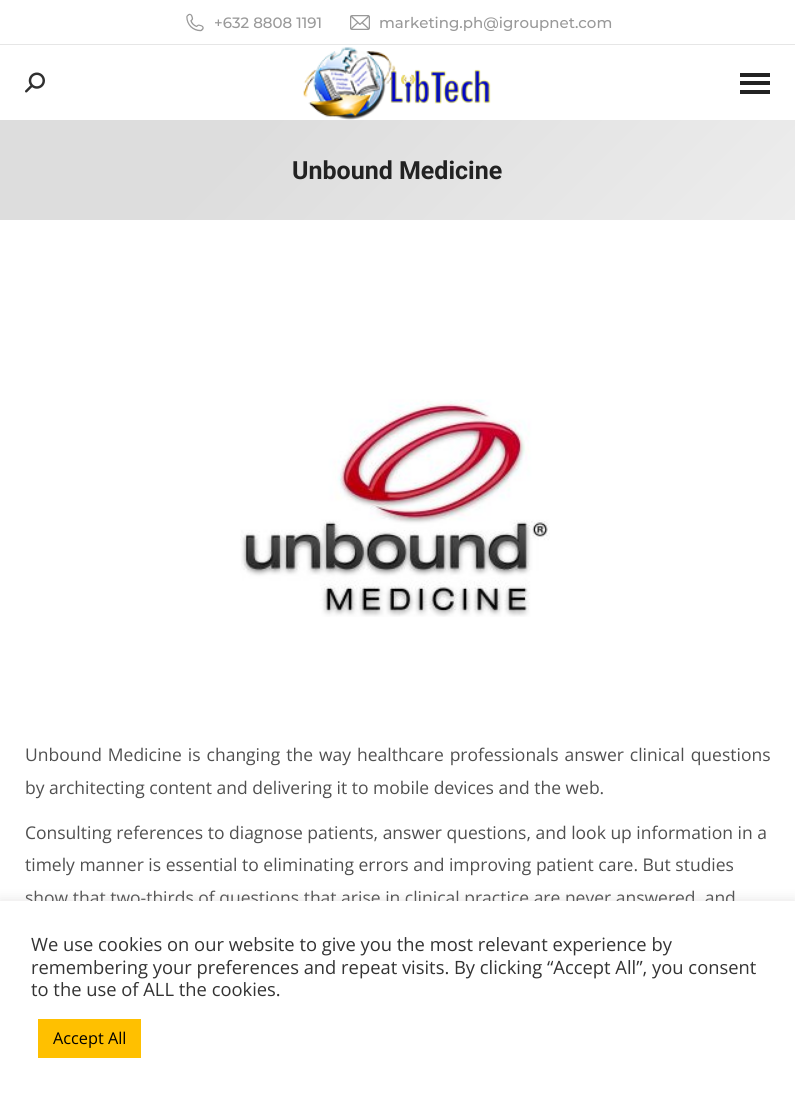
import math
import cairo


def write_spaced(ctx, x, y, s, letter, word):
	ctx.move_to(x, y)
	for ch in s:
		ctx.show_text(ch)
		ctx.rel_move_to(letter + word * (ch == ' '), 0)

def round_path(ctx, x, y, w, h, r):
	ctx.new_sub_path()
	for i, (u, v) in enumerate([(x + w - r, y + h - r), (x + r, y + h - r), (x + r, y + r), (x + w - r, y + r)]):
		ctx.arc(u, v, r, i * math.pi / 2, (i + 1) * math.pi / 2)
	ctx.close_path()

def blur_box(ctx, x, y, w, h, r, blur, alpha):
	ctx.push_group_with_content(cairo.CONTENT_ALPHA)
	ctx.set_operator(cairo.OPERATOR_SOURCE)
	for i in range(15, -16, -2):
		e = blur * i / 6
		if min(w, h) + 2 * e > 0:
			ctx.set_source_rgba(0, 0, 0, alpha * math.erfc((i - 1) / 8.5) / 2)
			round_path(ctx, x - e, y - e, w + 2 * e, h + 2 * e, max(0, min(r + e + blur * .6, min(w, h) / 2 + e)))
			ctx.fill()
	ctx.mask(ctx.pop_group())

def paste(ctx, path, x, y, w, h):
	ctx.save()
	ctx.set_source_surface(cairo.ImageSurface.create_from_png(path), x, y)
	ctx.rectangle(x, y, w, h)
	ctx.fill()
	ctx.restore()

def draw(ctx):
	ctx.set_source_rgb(1, 1, 1)
	ctx.paint()
	paste(ctx, 'media/1.png', 186, 13, 18, 19)
	ctx.select_font_face('Montserrat Medium')
	ctx.set_font_size(15)
	ctx.set_source_rgb(0.6, 0.6, 0.6)
	ctx.move_to(214, 28)
	ctx.show_text('+632 8808 1191')
	paste(ctx, 'media/2.png', 350, 15, 20, 15)
	ctx.move_to(379, 28)
	ctx.show_text('marketing.ph@igroupnet.com')
	ctx.set_source_rgb(0.902, 0.902, 0.902)
	ctx.rectangle(0, 44, 795, 1)
	ctx.fill()
	paste(ctx, 'media/3.png', 25, 72, 20, 21)
	paste(ctx, 'media/4.png', 303, 47, 188, 73)
	ctx.set_source_rgb(0.133, 0.133, 0.133)
	ctx.rectangle(740, 73, 30, 4)
	ctx.rectangle(740, 81, 30, 4)
	ctx.rectangle(740, 90, 30, 4)
	ctx.fill()
	gradient = cairo.LinearGradient(174, -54, 621, 394)
	gradient.add_color_stop_rgba(0.3, 0.867, 0.867, 0.867, 1)
	gradient.add_color_stop_rgba(1, 0.929, 0.929, 0.929, 1)
	ctx.set_source(gradient)
	ctx.rectangle(0, 120, 795, 100)
	ctx.fill()
	ctx.select_font_face('Roboto', cairo.FONT_SLANT_NORMAL, cairo.FONT_WEIGHT_BOLD)
	ctx.set_font_size(25)
	ctx.set_source_rgb(0.133, 0.133, 0.133)
	ctx.move_to(292, 179)
	ctx.show_text('Unbound Medicine')
	paste(ctx, 'media/5.png', 240, 399, 310, 218)
	ctx.select_font_face('Open Sans')
	ctx.set_font_size(17.5)
	ctx.set_source_rgb(0.314, 0.314, 0.314)
	write_spaced(ctx, 25, 761, 'Unbound Medicine is changing the way healthcare professionals answer clinical questions', 0, 1.4)
	for x, y, s in [
		(25, 794, 'by architecting content and delivering it to mobile devices and the web.'),
		(25, 839, 'Consulting references to diagnose patients, answer questions, and look up information in a'),
		(25, 871, 'timely manner is essential to eliminating errors and improving patient care. But studies'),
		(25, 904, 'show that two-thirds of questions that arise in clinical practice are never answered, and'),
	]:
		ctx.move_to(x, y)
		ctx.show_text(s)
	ctx.set_source_rgb(0.675, 0.671, 0.671)
	blur_box(ctx, 0, 900, 795, 194, 0, 6, 0.3)
	ctx.set_source_rgb(1, 1, 1)
	ctx.rectangle(0, 901, 795, 193)
	ctx.fill()
	ctx.set_font_size(18.35)
	ctx.set_source_rgb(0.2, 0.2, 0.2)
	for x, y, s in [
		(31, 951, 'We use cookies on our website to give you the most relevant experience by'),
		(31, 974, 'remembering your preferences and repeat visits. By clicking “Accept All”, you consent'),
		(31, 996, 'to the use of ALL the cookies.'),
	]:
		ctx.move_to(x, y)
		ctx.show_text(s)
	ctx.set_source_rgb(1, 0.753, 0)
	ctx.rectangle(38, 1019, 103, 39)
	ctx.fill()
	ctx.set_font_size(16.25)
	ctx.set_source_rgb(0, 0, 0)
	ctx.move_to(53, 1044)
	ctx.show_text('Accept All')


surface = cairo.ImageSurface(cairo.FORMAT_RGB24, 795, 1094)
ctx = cairo.Context(surface)
options = cairo.FontOptions()
options.set_hint_metrics(cairo.HINT_METRICS_OFF)
options.set_hint_style(cairo.HINT_STYLE_NONE)
ctx.set_font_options(options)
ctx.set_miter_limit(4)
draw(ctx)
surface.write_to_png('image.png')
